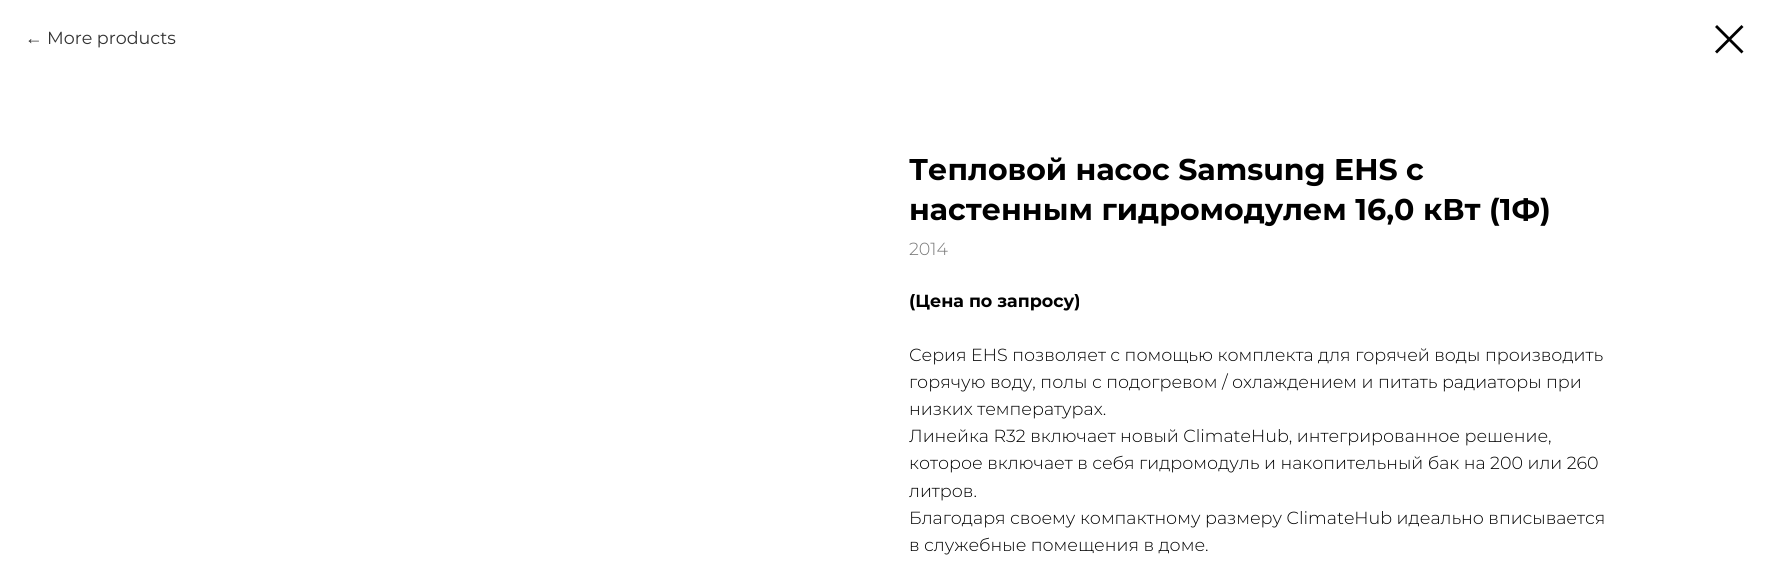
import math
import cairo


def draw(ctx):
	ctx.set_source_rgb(1, 1, 1)
	ctx.paint()
	ctx.select_font_face('Liberation Sans')
	ctx.set_font_size(17.5)
	ctx.set_source_rgb(0.2, 0.2, 0.2)
	ctx.move_to(25, 44)
	ctx.show_text('←')
	ctx.select_font_face('Montserrat')
	ctx.move_to(47, 44)
	ctx.show_text('More products')
	ctx.set_source_rgb(0, 0, 0)
	ctx.set_fill_rule(cairo.FILL_RULE_EVEN_ODD)
	ctx.new_path()
	ctx.move_to(1715, 27)
	ctx.line_to(1717, 25)
	ctx.line_to(1743.5, 51.5)
	ctx.line_to(1741.5, 53.5)
	ctx.close_path()
	ctx.fill()
	ctx.new_path()
	ctx.move_to(1741.5, 25)
	ctx.line_to(1743.5, 27)
	ctx.line_to(1717, 53.5)
	ctx.line_to(1715, 51.5)
	ctx.close_path()
	ctx.fill()
	ctx.select_font_face('Montserrat', cairo.FONT_SLANT_NORMAL, cairo.FONT_WEIGHT_BOLD)
	ctx.set_font_size(30)
	ctx.move_to(909, 180)
	ctx.show_text('Тепловой насос Samsung EHS с')
	ctx.move_to(909, 220)
	ctx.show_text('настенным гидромодулем 16,0 кВт (1Ф)')
	ctx.select_font_face('Montserrat Light')
	ctx.set_font_size(17.5)
	ctx.set_source_rgb(0.467, 0.467, 0.467)
	ctx.move_to(909, 255)
	ctx.show_text('2014')
	ctx.select_font_face('Montserrat', cairo.FONT_SLANT_NORMAL, cairo.FONT_WEIGHT_BOLD)
	ctx.set_source_rgb(0, 0, 0)
	ctx.move_to(909, 307)
	ctx.show_text('(Цена по запросу)')
	ctx.select_font_face('Montserrat Light')
	for x, y, s in [
		(909, 361, 'Серия EHS позволяет с помощью комплекта для горячей воды производить'),
		(909, 388, 'горячую воду, полы с подогревом / охлаждением и питать радиаторы при'),
		(909, 415, 'низких температурах.'),
		(909, 442, 'Линейка R32 включает новый ClimateHub, интегрированное решение,'),
		(909, 469, 'которое включает в себя гидромодуль и накопительный бак на 200 или 260'),
		(909, 497, 'литров.'),
		(909, 524, 'Благодаря своему компактному размеру ClimateHub идеально вписывается'),
		(909, 551, 'в служебные помещения в доме.'),
	]:
		ctx.move_to(x, y)
		ctx.show_text(s)


surface = cairo.ImageSurface(cairo.FORMAT_RGB24, 1768, 562)
ctx = cairo.Context(surface)
options = cairo.FontOptions()
options.set_hint_metrics(cairo.HINT_METRICS_OFF)
options.set_hint_style(cairo.HINT_STYLE_NONE)
ctx.set_font_options(options)
ctx.set_miter_limit(4)
draw(ctx)
surface.write_to_png('image.png')
